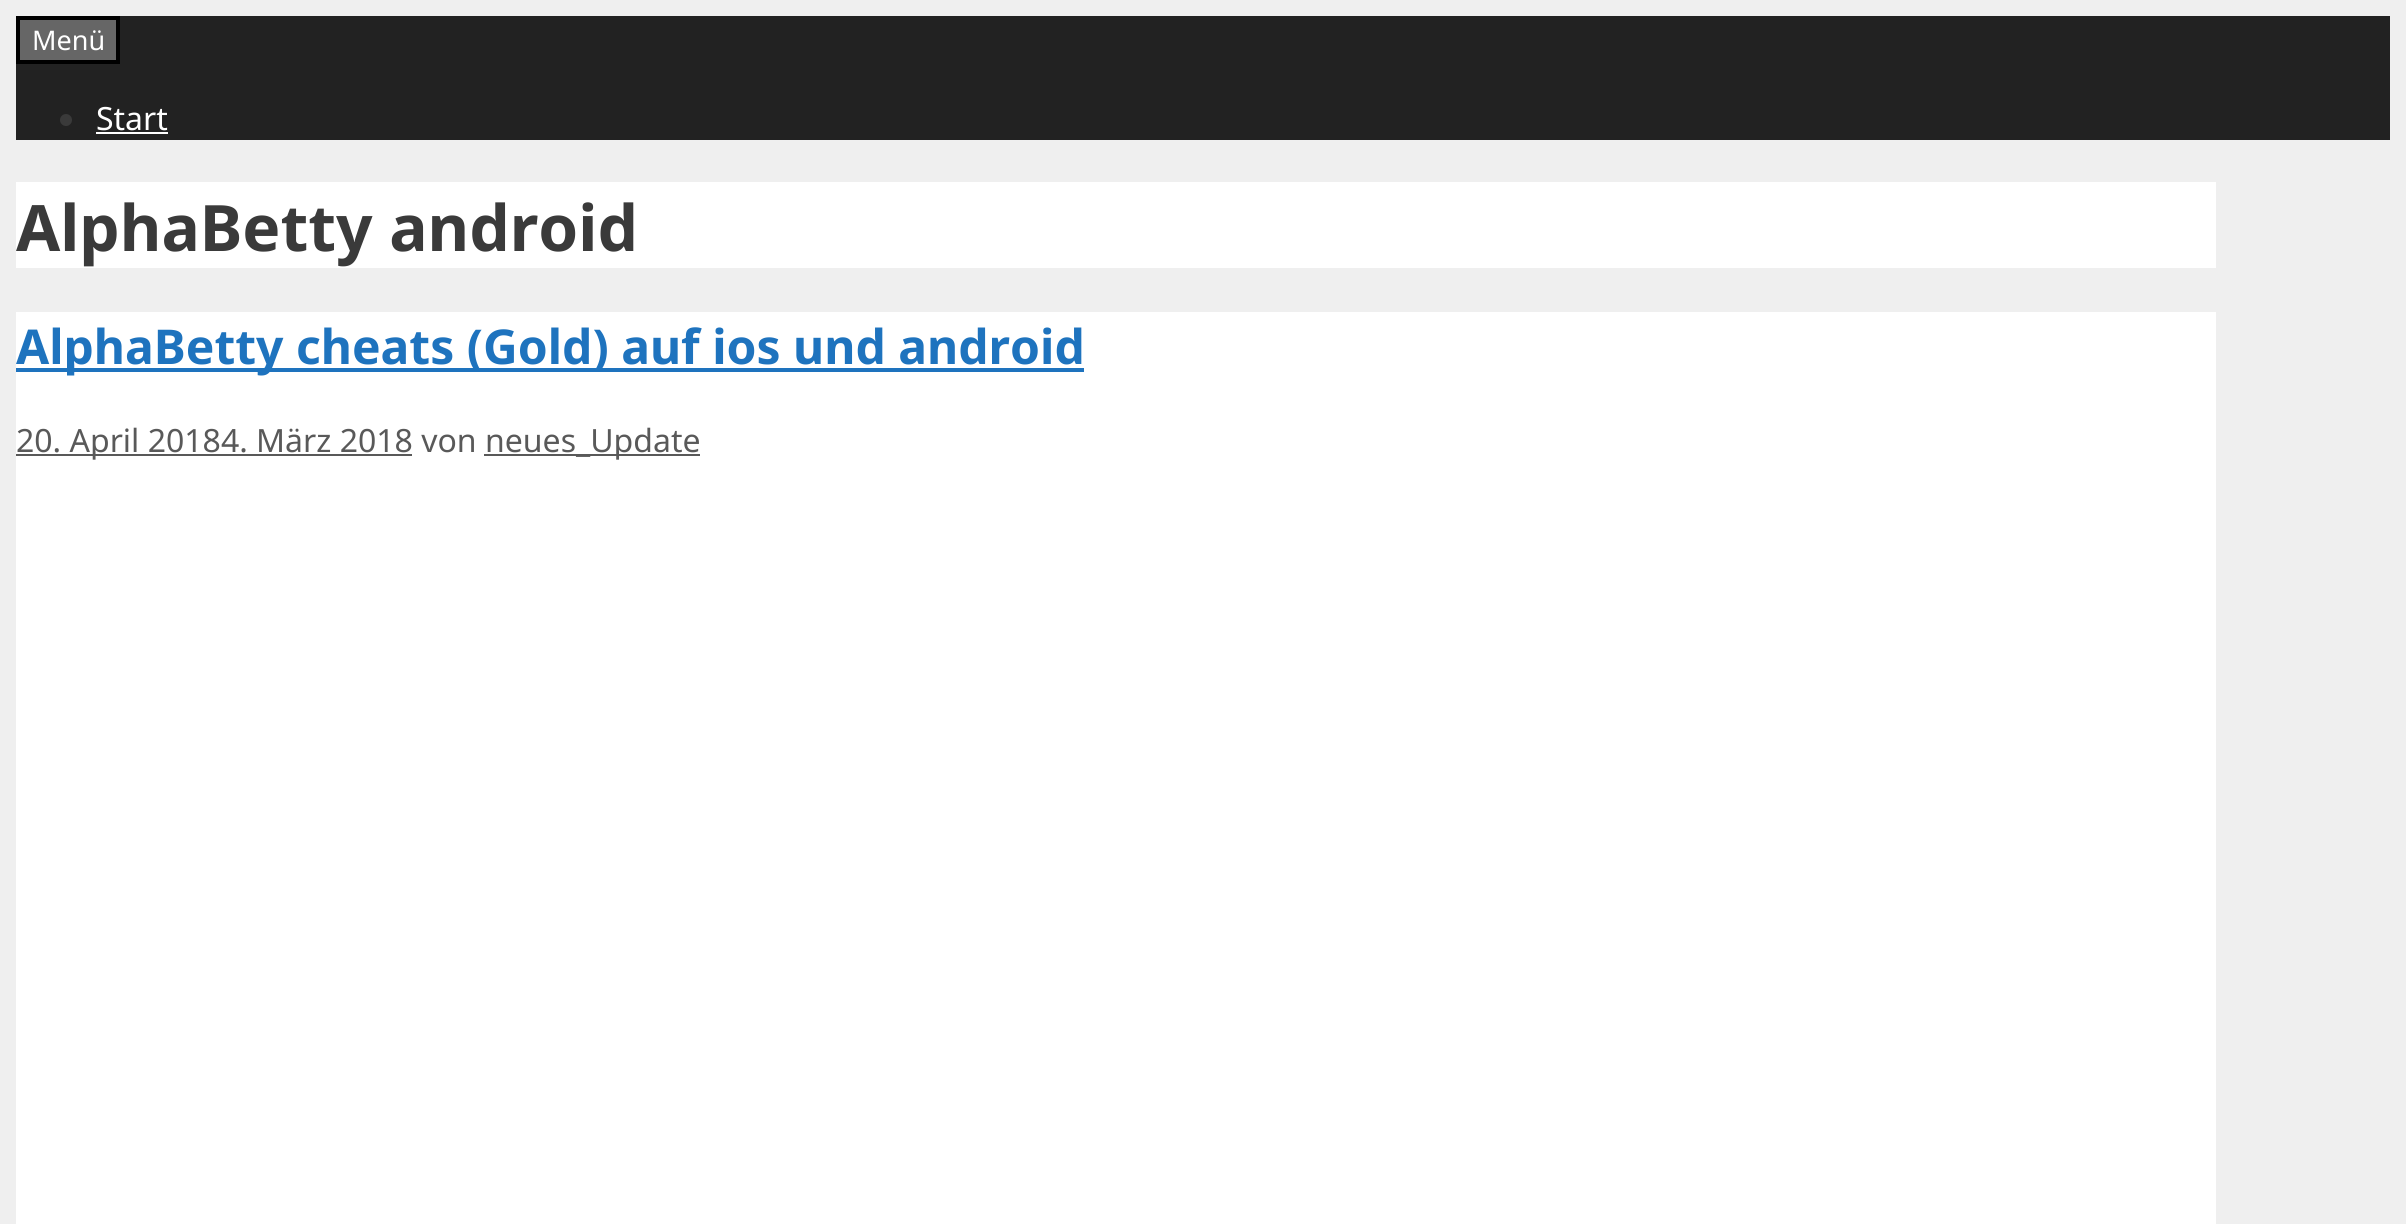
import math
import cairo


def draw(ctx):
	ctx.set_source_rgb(0.937, 0.937, 0.937)
	ctx.paint()
	ctx.set_source_rgb(0.133, 0.133, 0.133)
	ctx.rectangle(16, 16, 2374, 124)
	ctx.fill()
	ctx.set_source_rgb(0.4, 0.4, 0.4)
	ctx.rectangle(18, 18, 100, 44)
	ctx.fill_preserve()
	ctx.set_source_rgb(0, 0, 0)
	ctx.set_line_width(4)
	ctx.stroke()
	ctx.select_font_face('Noto Sans')
	ctx.set_font_size(27)
	ctx.set_source_rgb(1, 1, 1)
	ctx.move_to(32, 50)
	ctx.show_text('Menü')
	ctx.set_source_rgb(0.227, 0.227, 0.227)
	ctx.new_path()
	ctx.arc(66, 120, 6, 0, 2 * math.pi)
	ctx.fill()
	ctx.set_font_size(32)
	ctx.set_source_rgb(1, 1, 1)
	ctx.move_to(96, 130)
	ctx.show_text('Start')
	ctx.rectangle(96, 132, 72, 2)
	ctx.fill()
	ctx.rectangle(16, 182, 2200, 86)
	ctx.fill()
	ctx.select_font_face('Noto Sans', cairo.FONT_SLANT_NORMAL, cairo.FONT_WEIGHT_BOLD)
	ctx.set_font_size(64)
	ctx.set_source_rgb(0.227, 0.227, 0.227)
	ctx.move_to(16, 251)
	ctx.show_text('AlphaBetty android')
	ctx.set_source_rgb(1, 1, 1)
	ctx.rectangle(16, 312, 2200, 912)
	ctx.fill()
	ctx.set_source_rgb(0.118, 0.451, 0.745)
	ctx.rectangle(16, 368, 1068, 4)
	ctx.fill()
	ctx.set_font_size(48)
	ctx.move_to(16, 364)
	ctx.show_text('AlphaBetty cheats (Gold) auf ios und android')
	ctx.set_source_rgb(0.349, 0.349, 0.349)
	ctx.rectangle(16, 454, 396, 2)
	ctx.fill()
	ctx.select_font_face('Noto Sans')
	ctx.set_font_size(32)
	ctx.move_to(16, 452)
	ctx.show_text('20. April 20184. März 2018 von')
	ctx.rectangle(484, 454, 216, 2)
	ctx.fill()
	ctx.move_to(485, 452)
	ctx.show_text('neues_Update')


surface = cairo.ImageSurface(cairo.FORMAT_RGB24, 2406, 1224)
ctx = cairo.Context(surface)
options = cairo.FontOptions()
options.set_hint_metrics(cairo.HINT_METRICS_OFF)
options.set_hint_style(cairo.HINT_STYLE_NONE)
ctx.set_font_options(options)
ctx.set_miter_limit(4)
draw(ctx)
surface.write_to_png('image.png')
